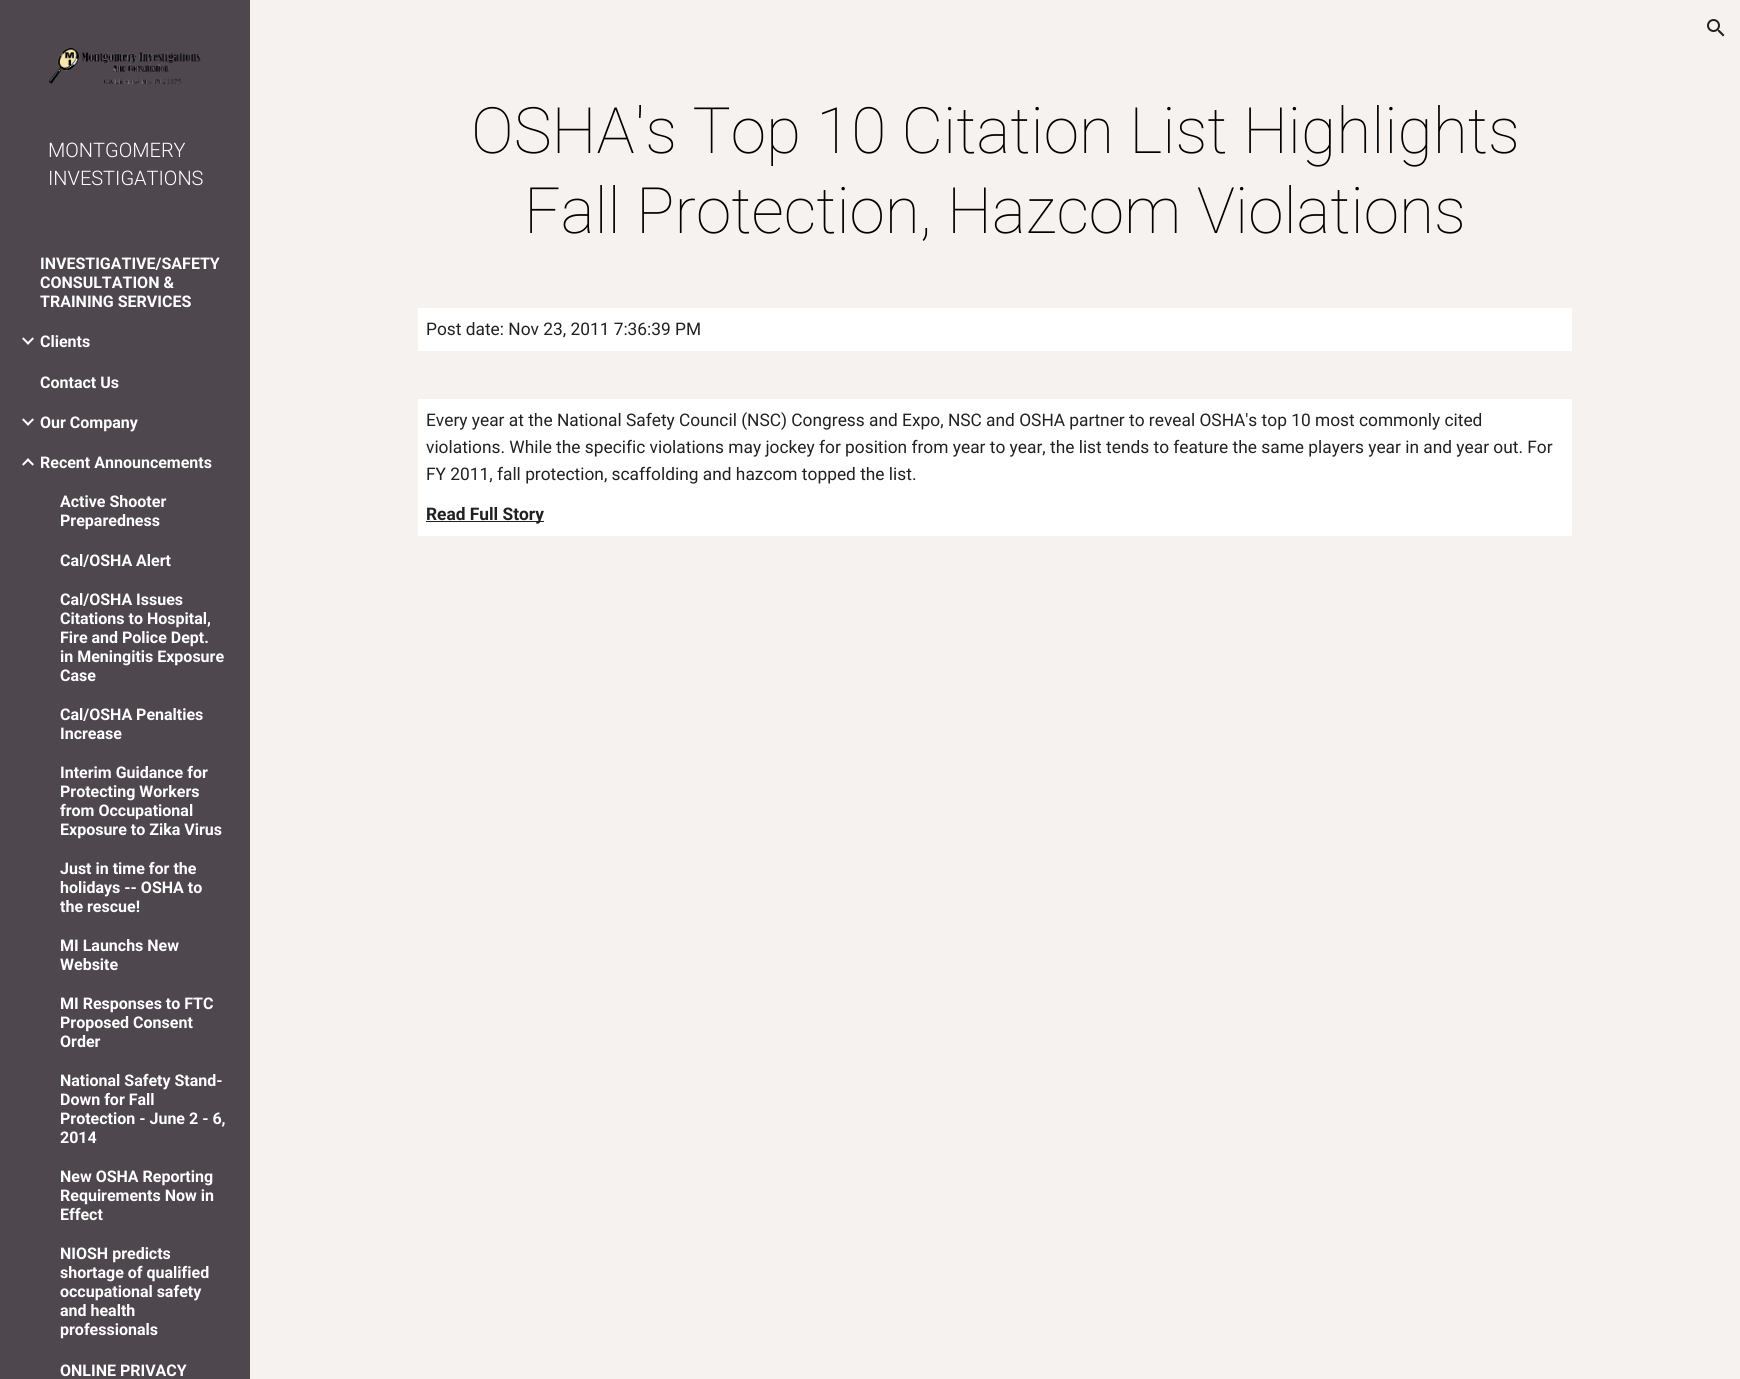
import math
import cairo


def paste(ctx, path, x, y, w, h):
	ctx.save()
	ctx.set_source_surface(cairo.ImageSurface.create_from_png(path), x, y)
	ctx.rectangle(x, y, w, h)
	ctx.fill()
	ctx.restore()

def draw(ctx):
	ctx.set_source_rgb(0.961, 0.949, 0.941)
	ctx.paint()
	paste(ctx, 'media/1.png', 1707, 19, 18, 18)
	ctx.set_source_rgb(0.31, 0.278, 0.306)
	ctx.rectangle(0, 0, 250, 1379)
	ctx.fill()
	paste(ctx, 'media/2.png', 48, 48, 153, 36)
	ctx.select_font_face('Roboto Light')
	ctx.set_font_size(20)
	ctx.set_source_rgb(1, 1, 1)
	ctx.move_to(48, 157)
	ctx.show_text('MONTGOMERY')
	ctx.move_to(48, 185)
	ctx.show_text('INVESTIGATIONS')
	ctx.select_font_face('Roboto', cairo.FONT_SLANT_NORMAL, cairo.FONT_WEIGHT_BOLD)
	ctx.set_font_size(16)
	for x, y, s in [
		(40, 269, 'INVESTIGATIVE/SAFETY'),
		(40, 288, 'CONSULTATION &'),
		(40, 307, 'TRAINING SERVICES'),
	]:
		ctx.move_to(x, y)
		ctx.show_text(s)
	paste(ctx, 'media/3.png', 22, 337, 12, 8)
	ctx.move_to(40, 347)
	ctx.show_text('Clients')
	ctx.move_to(40, 388)
	ctx.show_text('Contact Us')
	paste(ctx, 'media/3.png', 22, 418, 12, 8)
	ctx.move_to(40, 428)
	ctx.show_text('Our Company')
	paste(ctx, 'media/4.png', 22, 458, 12, 8)
	for x, y, s in [
		(40, 468, 'Recent Announcements'),
		(60, 507, 'Active Shooter'),
		(60, 526, 'Preparedness'),
		(60, 566, 'Cal/OSHA Alert'),
		(60, 605, 'Cal/OSHA Issues'),
		(60, 624, 'Citations to Hospital,'),
		(60, 643, 'Fire and Police Dept.'),
		(60, 662, 'in Meningitis Exposure'),
		(60, 681, 'Case'),
		(60, 720, 'Cal/OSHA Penalties'),
		(60, 739, 'Increase'),
		(60, 778, 'Interim Guidance for'),
		(60, 797, 'Protecting Workers'),
		(60, 816, 'from Occupational'),
		(60, 835, 'Exposure to Zika Virus'),
		(60, 874, 'Just in time for the'),
		(60, 893, 'holidays -- OSHA to'),
		(60, 912, 'the rescue!'),
		(60, 951, 'MI Launchs New'),
		(60, 970, 'Website'),
		(60, 1009, 'MI Responses to FTC'),
		(60, 1028, 'Proposed Consent'),
		(60, 1047, 'Order'),
		(60, 1086, 'National Safety Stand-'),
		(60, 1105, 'Down for Fall'),
		(60, 1124, 'Protection - June 2 - 6,'),
		(60, 1143, '2014'),
		(60, 1182, 'New OSHA Reporting'),
		(60, 1201, 'Requirements Now in'),
		(60, 1220, 'Effect'),
		(60, 1259, 'NIOSH predicts'),
		(60, 1278, 'shortage of qualified'),
		(60, 1297, 'occupational safety'),
		(60, 1316, 'and health'),
		(60, 1335, 'professionals'),
		(60, 1376, 'ONLINE PRIVACY'),
	]:
		ctx.move_to(x, y)
		ctx.show_text(s)
	ctx.select_font_face('Roboto Thin')
	ctx.set_font_size(64)
	ctx.set_source_rgb(0, 0, 0)
	ctx.move_to(471, 153)
	ctx.show_text('OSHA\'s Top 10 Citation List Highlights')
	ctx.move_to(524, 233)
	ctx.show_text('Fall Protection, Hazcom Violations')
	ctx.set_source_rgb(1, 1, 1)
	ctx.rectangle(418, 308, 1154, 43)
	ctx.fill()
	ctx.select_font_face('Roboto')
	ctx.set_font_size(17.33)
	ctx.set_source_rgb(0.129, 0.129, 0.129)
	ctx.move_to(426, 335)
	ctx.show_text('Post date: Nov 23, 2011 7:36:39 PM')
	ctx.set_source_rgb(1, 1, 1)
	ctx.rectangle(418, 399, 1154, 137)
	ctx.fill()
	ctx.set_source_rgb(0.129, 0.129, 0.129)
	for x, y, s in [
		(426, 426, 'Every year at the National Safety Council (NSC) Congress and Expo, NSC and OSHA partner to reveal OSHA\'s top 10 most commonly cited'),
		(426, 453, 'violations. While the specific violations may jockey for position from year to year, the list tends to feature the same players year in and year out. For'),
		(426, 480, 'FY 2011, fall protection, scaffolding and hazcom topped the list.'),
	]:
		ctx.move_to(x, y)
		ctx.show_text(s)
	ctx.rectangle(426, 521, 118, 1)
	ctx.fill()
	ctx.select_font_face('Roboto', cairo.FONT_SLANT_NORMAL, cairo.FONT_WEIGHT_BOLD)
	ctx.move_to(426, 520)
	ctx.show_text('Read Full Story')


surface = cairo.ImageSurface(cairo.FORMAT_RGB24, 1740, 1379)
ctx = cairo.Context(surface)
options = cairo.FontOptions()
options.set_hint_metrics(cairo.HINT_METRICS_OFF)
options.set_hint_style(cairo.HINT_STYLE_NONE)
ctx.set_font_options(options)
ctx.set_miter_limit(4)
draw(ctx)
surface.write_to_png('image.png')
